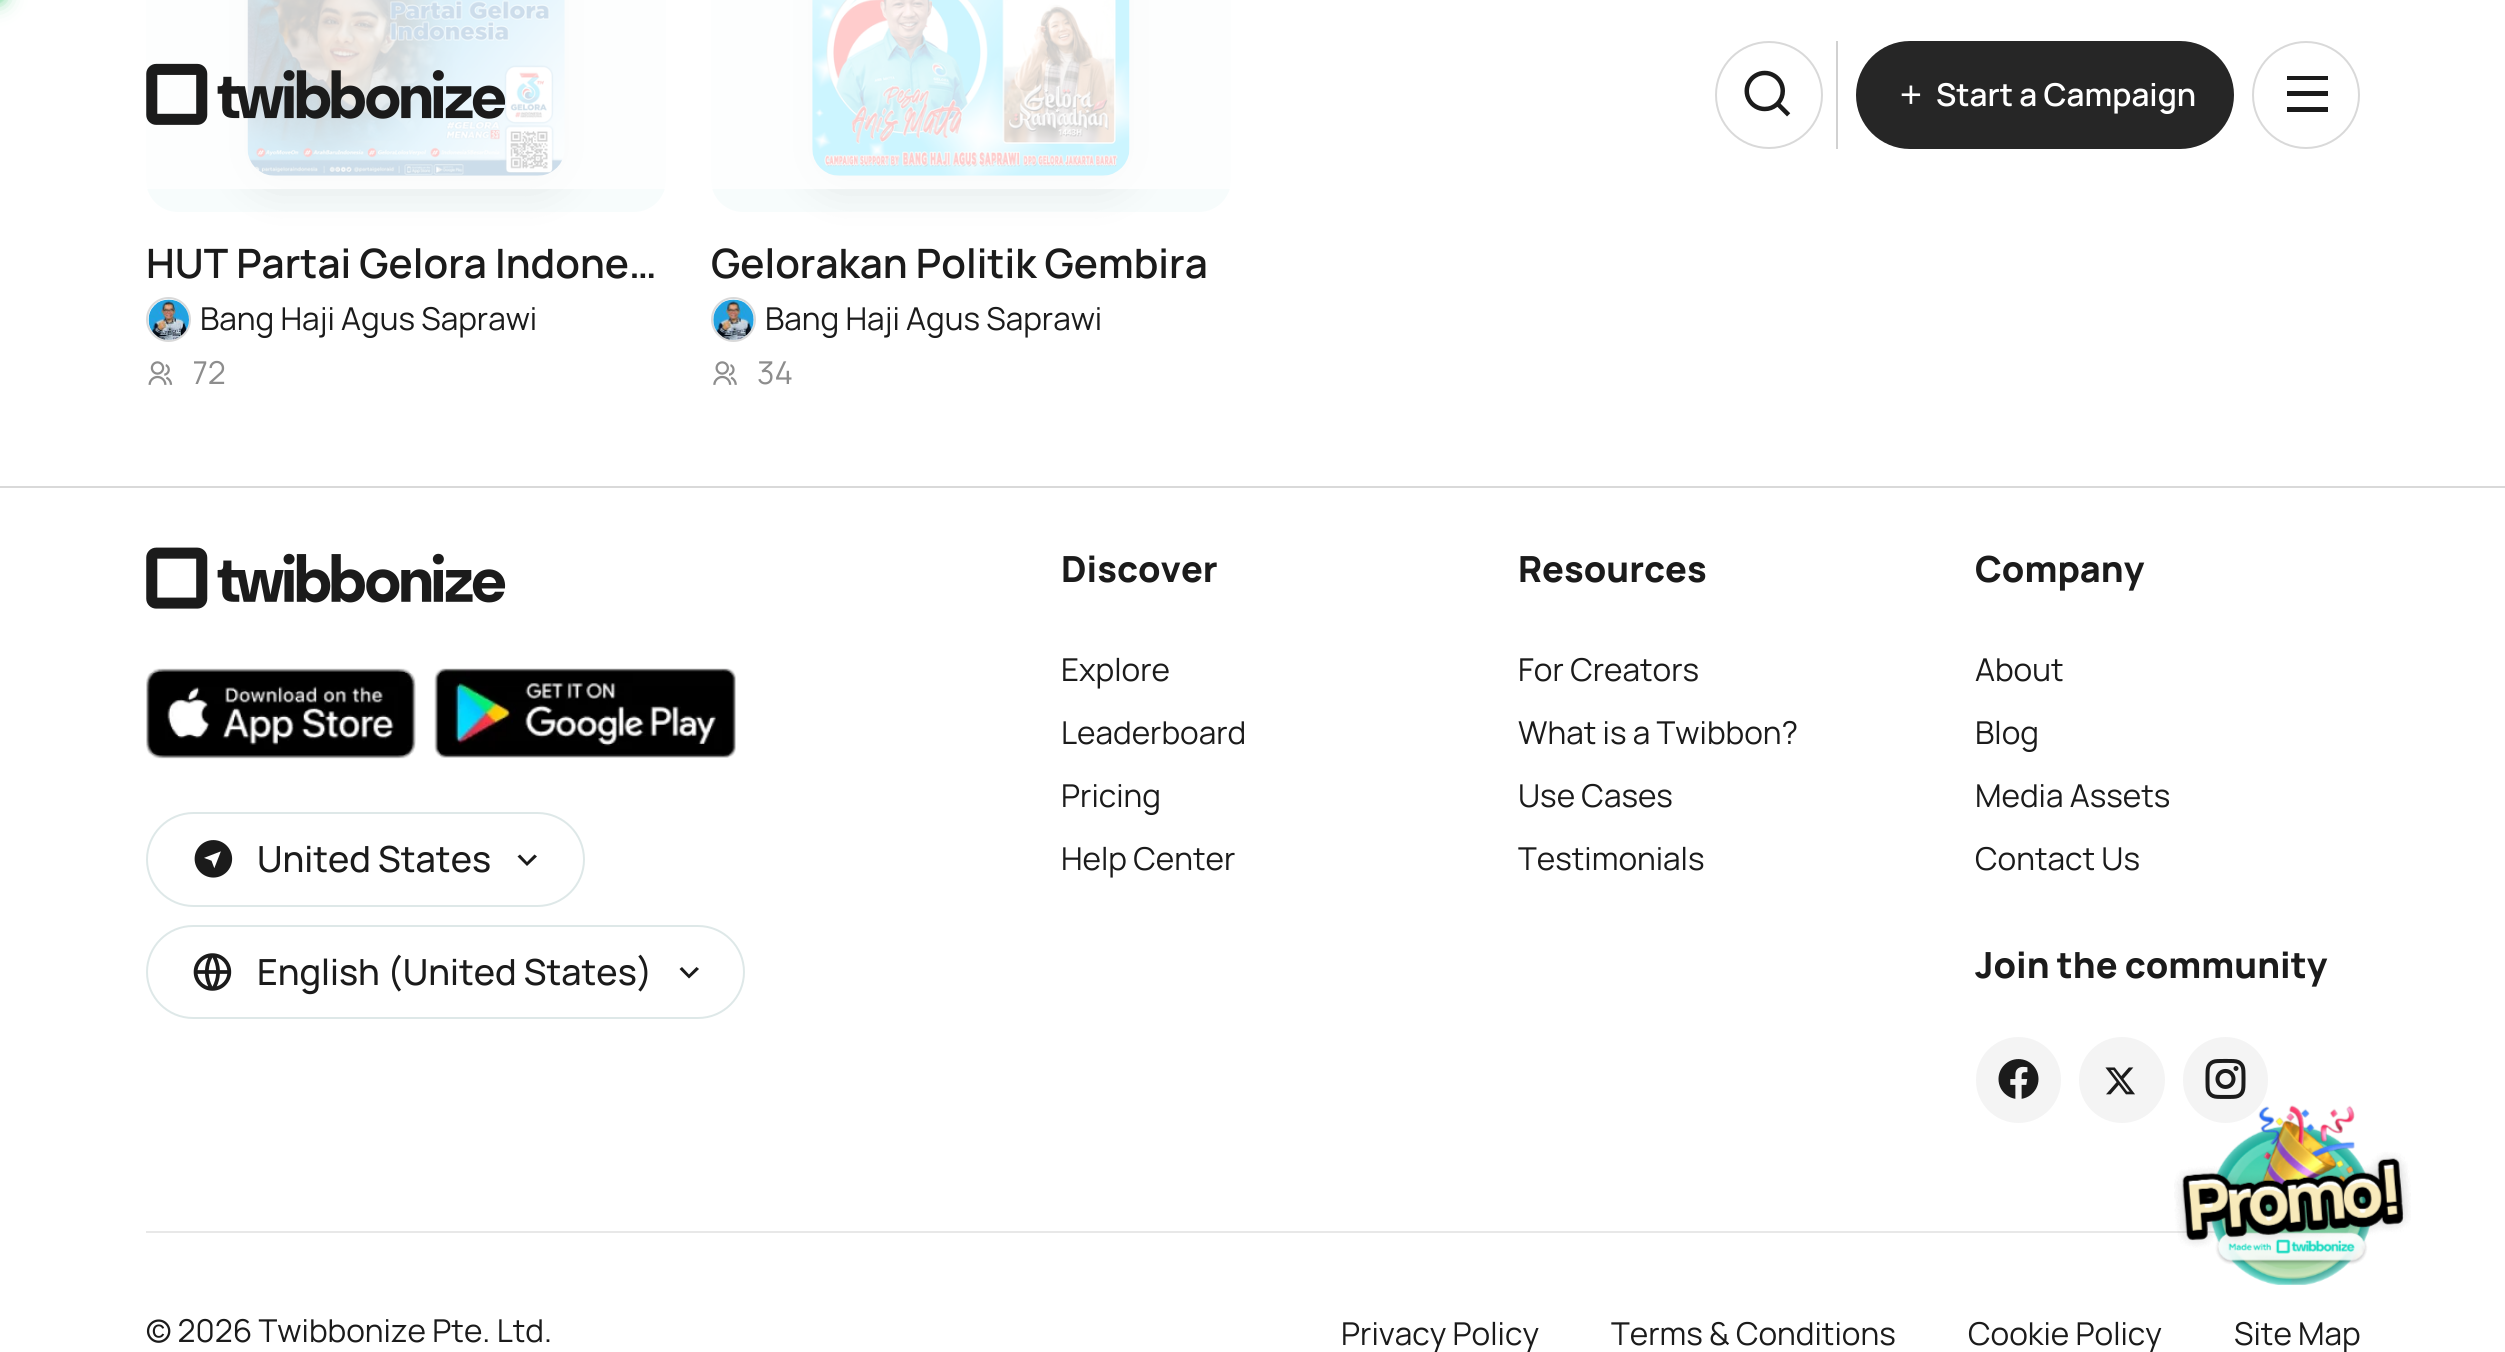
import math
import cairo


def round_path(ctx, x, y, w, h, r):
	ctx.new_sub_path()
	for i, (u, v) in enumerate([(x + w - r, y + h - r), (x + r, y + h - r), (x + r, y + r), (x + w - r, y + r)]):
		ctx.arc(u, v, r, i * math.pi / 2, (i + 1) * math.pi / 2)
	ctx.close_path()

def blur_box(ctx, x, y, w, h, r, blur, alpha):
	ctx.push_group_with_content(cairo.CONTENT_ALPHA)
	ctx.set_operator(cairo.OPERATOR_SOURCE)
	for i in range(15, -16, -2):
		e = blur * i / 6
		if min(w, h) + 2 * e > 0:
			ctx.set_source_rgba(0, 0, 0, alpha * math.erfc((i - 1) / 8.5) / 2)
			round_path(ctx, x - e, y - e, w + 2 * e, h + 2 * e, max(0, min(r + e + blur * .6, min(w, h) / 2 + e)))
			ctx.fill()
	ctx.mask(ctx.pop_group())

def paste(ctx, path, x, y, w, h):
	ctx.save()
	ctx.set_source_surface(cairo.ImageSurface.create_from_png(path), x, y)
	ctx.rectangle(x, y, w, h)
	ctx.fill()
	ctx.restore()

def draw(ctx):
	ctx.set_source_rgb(1, 1, 1)
	ctx.paint()
	ctx.set_source_rgb(0.404, 0.827, 0.569)
	blur_box(ctx, -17, -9, 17, 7, 0, 5.5, 1)
	blur_box(ctx, -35, -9, 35, 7, 0, 11.5, 1)
	ctx.set_source_rgb(0.965, 0.988, 0.988)
	round_path(ctx, 146, -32, 520, 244, 32)
	ctx.fill()
	ctx.set_source_rgb(0, 0, 0)
	blur_box(ctx, 248, -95, 317, 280, 27, 22.5, 0.1)
	paste(ctx, 'media/4.png', 247, 0, 318, 176)
	ctx.set_source_rgb(0.965, 0.988, 0.988)
	round_path(ctx, 711, -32, 520, 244, 32)
	ctx.fill()
	ctx.set_source_rgb(0, 0, 0)
	blur_box(ctx, 812, -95, 318, 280, 27, 22.5, 0.1)
	paste(ctx, 'media/7.png', 812, 0, 318, 176)
	ctx.set_source_rgba(1, 1, 1, 0.8)
	ctx.rectangle(146, 0, 1085, 189)
	ctx.fill()
	paste(ctx, 'media/1.png', 146, 63, 360, 62)
	ctx.set_source_rgb(0.82, 0.82, 0.82)
	ctx.rectangle(1836, 41, 2, 108)
	ctx.fill()
	ctx.arc(1769, 95, 53, 0, 2 * math.pi)
	ctx.set_source_rgb(0.851, 0.851, 0.851)
	ctx.stroke()
	paste(ctx, 'media/2.png', 1744, 70, 47, 47)
	ctx.set_source_rgb(0.149, 0.149, 0.149)
	round_path(ctx, 1856, 41, 378, 108, 54)
	ctx.fill()
	paste(ctx, 'media/3.png', 1901, 85, 20, 19)
	ctx.select_font_face('Manrope SemiBold')
	ctx.set_font_size(31.5)
	ctx.set_source_rgb(1, 1, 1)
	ctx.move_to(1936, 106)
	ctx.show_text('Start a Campaign')
	ctx.new_path()
	ctx.arc(2306, 95, 53, 0, 2 * math.pi)
	ctx.set_source_rgb(0.851, 0.851, 0.851)
	ctx.stroke()
	ctx.set_source_rgb(0.106, 0.106, 0.106)
	ctx.new_path()
	ctx.move_to(2287, 76)
	ctx.line_to(2328, 76)
	ctx.line_to(2328, 80)
	ctx.line_to(2287, 80)
	ctx.close_path()
	ctx.move_to(2287, 91)
	ctx.line_to(2328, 91)
	ctx.line_to(2328, 96)
	ctx.line_to(2287, 96)
	ctx.close_path()
	ctx.move_to(2287, 107)
	ctx.line_to(2328, 107)
	ctx.line_to(2328, 112)
	ctx.line_to(2287, 112)
	ctx.close_path()
	ctx.fill()
	ctx.set_source_rgb(0.851, 0.851, 0.851)
	ctx.rectangle(0, 486, 2505, 2)
	ctx.fill()
	ctx.set_font_size(40.5)
	ctx.set_source_rgb(0.106, 0.106, 0.106)
	ctx.move_to(146, 278)
	ctx.show_text('HUT Partai Gelora Indone…')
	ctx.new_path()
	ctx.arc(168.5, 319.5, 21.5, 0, 2 * math.pi)
	ctx.set_source_rgb(0.851, 0.851, 0.851)
	ctx.stroke()
	paste(ctx, 'media/5.png', 148, 299, 41, 41)
	ctx.select_font_face('Manrope')
	ctx.set_font_size(31.5)
	ctx.set_source_rgb(0.106, 0.106, 0.106)
	ctx.move_to(200, 330)
	ctx.show_text('Bang Haji Agus Saprawi')
	paste(ctx, 'media/6.png', 148, 361, 25, 24)
	ctx.save()
	ctx.rectangle(194, 351, 33, 45)
	ctx.clip()
	ctx.set_source_rgb(0.553, 0.553, 0.553)
	ctx.move_to(192, 384)
	ctx.show_text('72')
	ctx.restore()
	ctx.select_font_face('Manrope SemiBold')
	ctx.set_font_size(40.5)
	ctx.move_to(711, 278)
	ctx.show_text('Gelorakan Politik Gembira')
	ctx.new_path()
	ctx.arc(733.5, 319.5, 21.5, 0, 2 * math.pi)
	ctx.set_source_rgb(0.851, 0.851, 0.851)
	ctx.stroke()
	paste(ctx, 'media/8.png', 713, 299, 41, 41)
	ctx.select_font_face('Manrope')
	ctx.set_font_size(31.5)
	ctx.set_source_rgb(0.106, 0.106, 0.106)
	ctx.move_to(765, 330)
	ctx.show_text('Bang Haji Agus Saprawi')
	paste(ctx, 'media/9.png', 713, 361, 24, 24)
	ctx.set_source_rgb(0.553, 0.553, 0.553)
	ctx.move_to(757, 384)
	ctx.show_text('34')
	ctx.set_source_rgb(0.957, 0.957, 0.957)
	round_path(ctx, 2183, 1037, 85, 86, 42.5)
	ctx.fill()
	ctx.set_source_rgb(0.91, 0.91, 0.91)
	ctx.rectangle(146, 1231, 2070, 2)
	ctx.fill()
	paste(ctx, 'media/10.png', 2174, 1105, 237, 180)
	paste(ctx, 'media/11.png', 146, 547, 360, 62)
	paste(ctx, 'media/12.png', 146, 668, 270, 91)
	paste(ctx, 'media/13.png', 434, 668, 302, 90)
	round_path(ctx, 147, 813, 437, 93, 46.5)
	ctx.set_source_rgb(0.871, 0.91, 0.91)
	ctx.stroke()
	paste(ctx, 'media/14.png', 194, 840, 39, 38)
	ctx.select_font_face('Manrope Medium')
	ctx.set_font_size(36)
	ctx.set_source_rgb(0.106, 0.106, 0.106)
	ctx.move_to(257, 872)
	ctx.show_text('United States')
	ctx.new_path()
	ctx.move_to(527, 862)
	ctx.line_to(534.5, 854.5)
	ctx.line_to(537, 856.5)
	ctx.line_to(527, 866)
	ctx.line_to(517.5, 856.5)
	ctx.line_to(520, 854.5)
	ctx.close_path()
	ctx.fill()
	round_path(ctx, 147, 926, 597, 92, 46)
	ctx.set_source_rgb(0.871, 0.91, 0.91)
	ctx.stroke()
	paste(ctx, 'media/15.png', 193, 953, 39, 38)
	ctx.set_source_rgb(0.106, 0.106, 0.106)
	ctx.move_to(257, 985)
	ctx.show_text('English (United States)')
	ctx.new_path()
	ctx.move_to(689, 974.5)
	ctx.line_to(696.5, 967)
	ctx.line_to(699, 969)
	ctx.line_to(689, 978.5)
	ctx.line_to(679.5, 969)
	ctx.line_to(682, 967)
	ctx.close_path()
	ctx.fill()
	ctx.select_font_face('Manrope ExtraBold')
	ctx.move_to(1061, 582)
	ctx.show_text('Discover')
	ctx.select_font_face('Manrope')
	ctx.set_font_size(31.5)
	for x, y, s in [
		(1061, 681, 'Explore'),
		(1061, 744, 'Leaderboard'),
		(1061, 807, 'Pricing'),
		(1061, 870, 'Help Center'),
	]:
		ctx.move_to(x, y)
		ctx.show_text(s)
	ctx.select_font_face('Manrope ExtraBold')
	ctx.set_font_size(36)
	ctx.move_to(1518, 582)
	ctx.show_text('Resources')
	ctx.select_font_face('Manrope')
	ctx.set_font_size(31.5)
	for x, y, s in [
		(1518, 681, 'For Creators'),
		(1518, 744, 'What is a Twibbon?'),
		(1518, 807, 'Use Cases'),
		(1518, 870, 'Testimonials'),
	]:
		ctx.move_to(x, y)
		ctx.show_text(s)
	ctx.select_font_face('Manrope ExtraBold')
	ctx.set_font_size(36)
	ctx.move_to(1975, 582)
	ctx.show_text('Company')
	ctx.select_font_face('Manrope')
	ctx.set_font_size(31.5)
	for x, y, s in [
		(1975, 681, 'About'),
		(1975, 744, 'Blog'),
		(1975, 807, 'Media Assets'),
		(1975, 870, 'Contact Us'),
	]:
		ctx.move_to(x, y)
		ctx.show_text(s)
	ctx.select_font_face('Manrope ExtraBold')
	ctx.set_font_size(36)
	ctx.move_to(1975, 978)
	ctx.show_text('Join the community')
	ctx.set_source_rgb(0.957, 0.957, 0.957)
	round_path(ctx, 1976, 1037, 85, 86, 42.5)
	ctx.fill()
	paste(ctx, 'media/16.png', 1998, 1059, 41, 40)
	ctx.arc(2122, 1080, 43, 0, 2 * math.pi)
	ctx.fill()
	paste(ctx, 'media/17.png', 2105, 1067, 30, 28)
	paste(ctx, 'media/18.png', 2205, 1058, 41, 41)
	ctx.select_font_face('Manrope')
	ctx.set_font_size(31.5)
	ctx.set_source_rgb(0.106, 0.106, 0.106)
	for x, y, s in [
		(146, 1342, '© 2026 Twibbonize Pte. Ltd.'),
		(1341, 1345, 'Privacy Policy'),
		(1611, 1345, 'Terms & Conditions'),
		(1968, 1345, 'Cookie Policy'),
		(2234, 1345, 'Site Map'),
	]:
		ctx.move_to(x, y)
		ctx.show_text(s)


surface = cairo.ImageSurface(cairo.FORMAT_RGB24, 2505, 1352)
ctx = cairo.Context(surface)
options = cairo.FontOptions()
options.set_hint_metrics(cairo.HINT_METRICS_OFF)
options.set_hint_style(cairo.HINT_STYLE_NONE)
ctx.set_font_options(options)
ctx.set_miter_limit(4)
draw(ctx)
surface.write_to_png('image.png')
